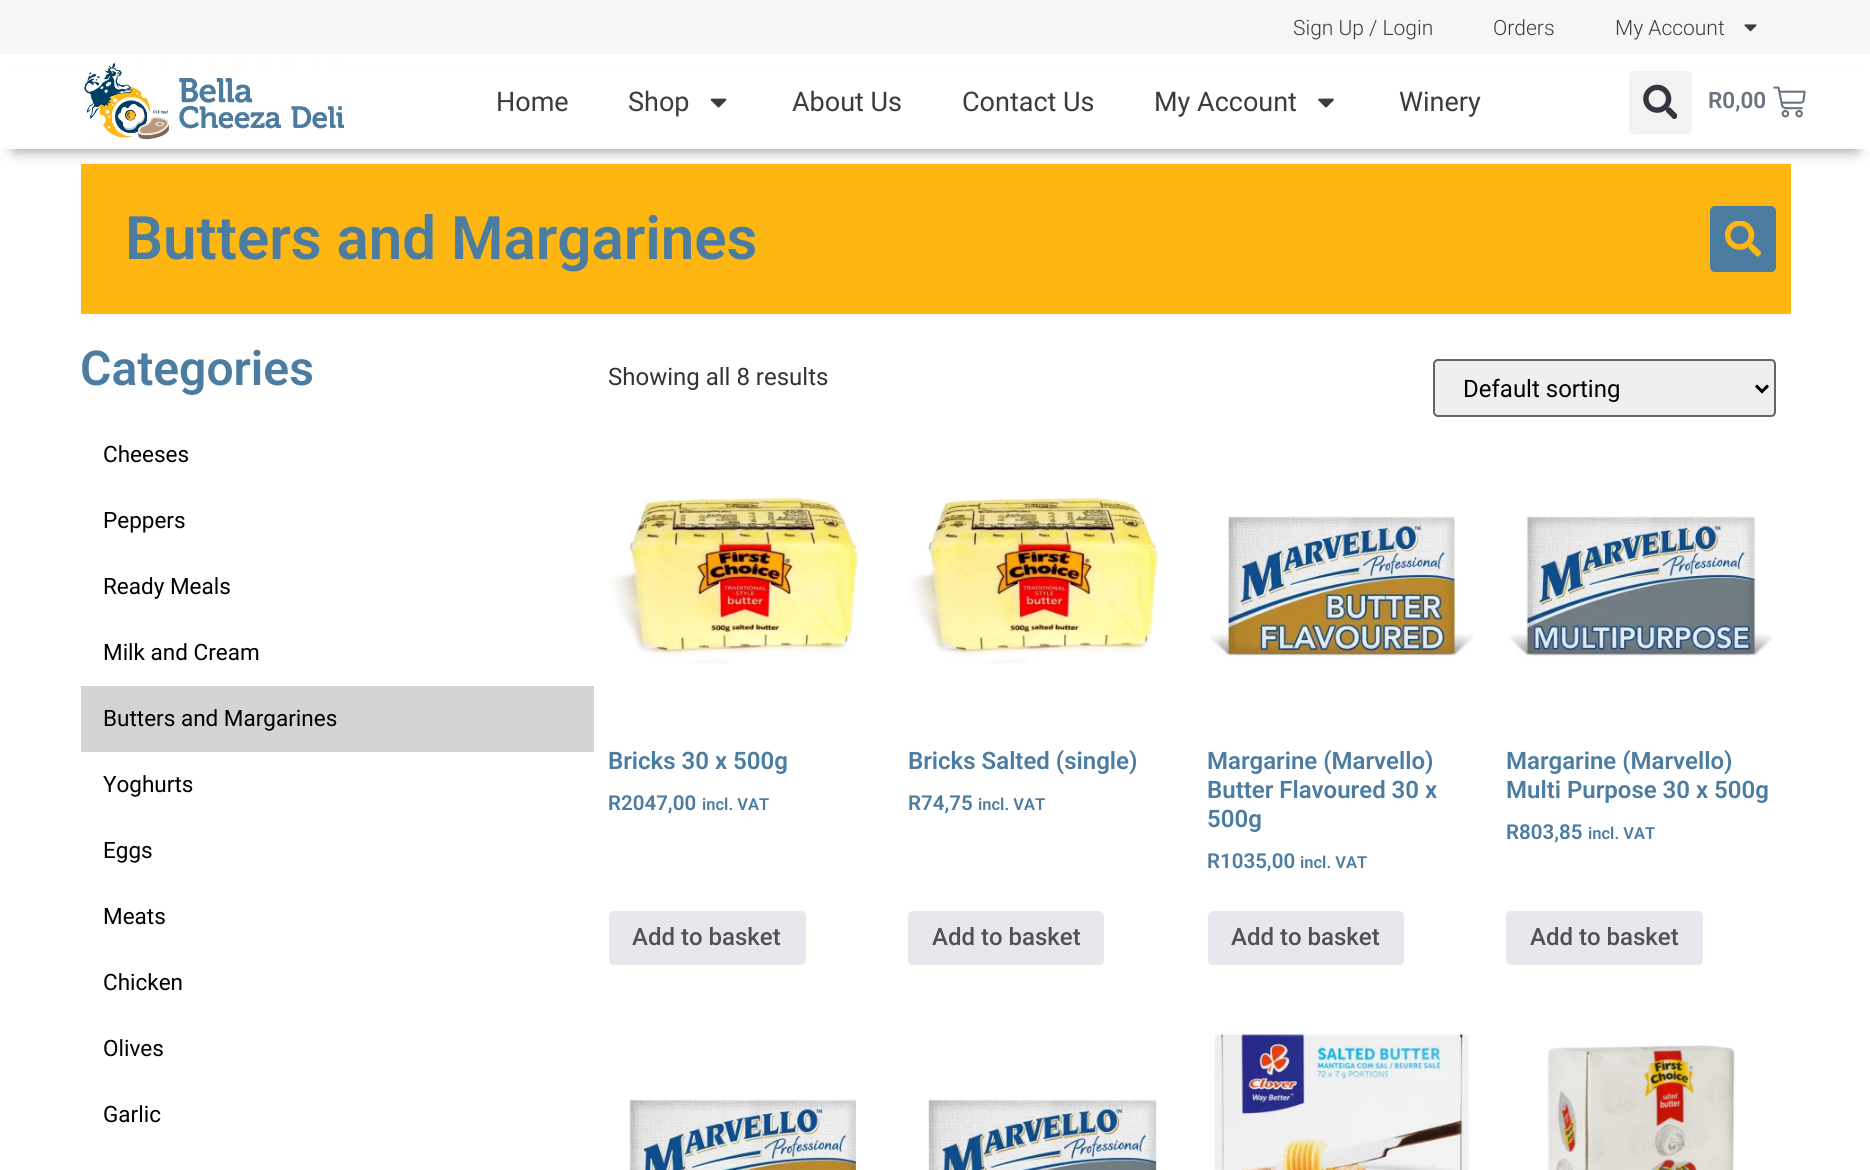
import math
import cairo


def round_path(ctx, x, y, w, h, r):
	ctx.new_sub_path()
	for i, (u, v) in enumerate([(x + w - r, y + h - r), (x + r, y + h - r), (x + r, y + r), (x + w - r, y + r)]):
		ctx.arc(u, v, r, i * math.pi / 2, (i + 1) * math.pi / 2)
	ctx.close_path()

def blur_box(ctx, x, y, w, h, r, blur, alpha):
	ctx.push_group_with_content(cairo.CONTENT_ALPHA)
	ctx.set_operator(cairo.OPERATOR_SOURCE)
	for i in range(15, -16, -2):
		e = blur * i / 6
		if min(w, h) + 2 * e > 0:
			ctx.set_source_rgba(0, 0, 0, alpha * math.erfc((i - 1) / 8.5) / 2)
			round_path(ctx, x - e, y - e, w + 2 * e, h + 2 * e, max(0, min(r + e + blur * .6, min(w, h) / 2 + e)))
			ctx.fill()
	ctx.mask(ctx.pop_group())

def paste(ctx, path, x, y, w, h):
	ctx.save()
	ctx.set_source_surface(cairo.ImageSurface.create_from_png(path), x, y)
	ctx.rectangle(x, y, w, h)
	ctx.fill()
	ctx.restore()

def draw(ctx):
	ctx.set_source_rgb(1, 1, 1)
	ctx.paint()
	ctx.set_source_rgb(0.961, 0.961, 0.961)
	ctx.rectangle(0, 0, 1870, 54)
	ctx.fill()
	ctx.select_font_face('Roboto Light')
	ctx.set_font_size(21)
	ctx.set_source_rgb(0.235, 0.235, 0.235)
	for x, y, s in [
		(1293, 35, 'Sign Up / Login'),
		(1493, 35, 'Orders'),
		(1615, 35, 'My Account'),
	]:
		ctx.move_to(x, y)
		ctx.show_text(s)
	paste(ctx, 'media/1.png', 1744, 24, 13, 8)
	ctx.set_source_rgb(0, 0, 0)
	blur_box(ctx, 15, 84, 1841, 65, 0, 7.5, 0.5)
	ctx.set_source_rgb(1, 1, 1)
	ctx.rectangle(0, 69, 1870, 80)
	ctx.fill()
	paste(ctx, 'media/2.png', 84, 62, 260, 78)
	ctx.select_font_face('Roboto')
	ctx.set_font_size(27)
	ctx.set_source_rgb(0.235, 0.235, 0.235)
	ctx.move_to(496, 111)
	ctx.show_text('Home')
	ctx.move_to(628, 111)
	ctx.show_text('Shop')
	paste(ctx, 'media/3.png', 710, 98, 17, 10)
	for x, y, s in [
		(792, 111, 'About Us'),
		(962, 111, 'Contact Us'),
		(1154, 111, 'My Account'),
	]:
		ctx.move_to(x, y)
		ctx.show_text(s)
	paste(ctx, 'media/4.png', 1318, 98, 16, 10)
	ctx.move_to(1399, 111)
	ctx.show_text('Winery')
	ctx.set_source_rgb(0.949, 0.949, 0.949)
	round_path(ctx, 1629, 71, 63, 63, 5)
	ctx.fill()
	paste(ctx, 'media/5.png', 1643, 84, 34, 35)
	ctx.select_font_face('Roboto SemiBold')
	ctx.set_font_size(22.5)
	ctx.set_source_rgb(0.412, 0.447, 0.49)
	ctx.move_to(1708, 108)
	ctx.show_text('R0,00')
	paste(ctx, 'media/6.png', 1773, 86, 33, 32)
	ctx.set_source_rgb(0.996, 0.714, 0.078)
	ctx.rectangle(81, 164, 1710, 150)
	ctx.fill()
	ctx.set_font_size(60)
	ctx.set_source_rgb(0.298, 0.49, 0.631)
	ctx.move_to(125, 259)
	ctx.show_text('Butters and Margarines')
	round_path(ctx, 1710, 206, 66, 66, 5)
	ctx.fill()
	paste(ctx, 'media/7.png', 1725, 221, 36, 36)
	ctx.set_font_size(48)
	ctx.move_to(80, 385)
	ctx.show_text('Categories')
	ctx.select_font_face('Roboto')
	ctx.set_font_size(22.5)
	ctx.set_source_rgb(0, 0, 0)
	for x, y, s in [
		(103, 462, 'Cheeses'),
		(103, 528, 'Peppers'),
		(103, 594, 'Ready Meals'),
		(103, 660, 'Milk and Cream'),
	]:
		ctx.move_to(x, y)
		ctx.show_text(s)
	ctx.set_source_rgb(0.831, 0.831, 0.831)
	ctx.rectangle(81, 686, 513, 66)
	ctx.fill()
	ctx.set_source_rgb(0, 0, 0)
	for x, y, s in [
		(103, 726, 'Butters and Margarines'),
		(103, 792, 'Yoghurts'),
		(103, 858, 'Eggs'),
		(103, 924, 'Meats'),
		(103, 990, 'Chicken'),
		(103, 1056, 'Olives'),
		(103, 1122, 'Garlic'),
	]:
		ctx.move_to(x, y)
		ctx.show_text(s)
	ctx.set_font_size(24)
	ctx.set_source_rgb(0.2, 0.2, 0.2)
	ctx.move_to(608, 385)
	ctx.show_text('Showing all 8 results')
	ctx.set_source_rgb(0.937, 0.937, 0.937)
	round_path(ctx, 1434, 360, 341, 56, 4)
	ctx.fill_preserve()
	ctx.set_source_rgb(0.4, 0.4, 0.4)
	ctx.stroke()
	ctx.new_path()
	ctx.move_to(1756, 385.5)
	ctx.line_to(1762, 391.5)
	ctx.line_to(1768, 385.5)
	ctx.set_source_rgb(0, 0, 0)
	ctx.set_line_width(3)
	ctx.stroke()
	ctx.move_to(1463, 397)
	ctx.show_text('Default sorting')
	paste(ctx, 'media/8.png', 609, 495, 250, 169)
	ctx.select_font_face('Roboto SemiBold')
	ctx.set_source_rgb(0.298, 0.49, 0.631)
	ctx.move_to(608, 769)
	ctx.show_text('Bricks 30 x 500g')
	ctx.set_font_size(20.5)
	ctx.move_to(608, 810)
	ctx.show_text('R2047,00')
	ctx.set_font_size(16.5)
	ctx.move_to(702, 810)
	ctx.show_text('incl. VAT')
	ctx.set_source_rgb(0.914, 0.902, 0.929)
	round_path(ctx, 609, 911, 197, 54, 5)
	ctx.fill()
	ctx.select_font_face('Roboto Medium')
	ctx.set_font_size(24)
	ctx.set_source_rgb(0.318, 0.318, 0.318)
	ctx.move_to(632, 945)
	ctx.show_text('Add to basket')
	paste(ctx, 'media/9.png', 908, 495, 251, 169)
	ctx.select_font_face('Roboto SemiBold')
	ctx.set_source_rgb(0.298, 0.49, 0.631)
	ctx.move_to(908, 769)
	ctx.show_text('Bricks Salted (single)')
	ctx.set_font_size(20.5)
	ctx.move_to(908, 810)
	ctx.show_text('R74,75')
	ctx.set_font_size(16.5)
	ctx.move_to(978, 810)
	ctx.show_text('incl. VAT')
	ctx.set_source_rgb(0.914, 0.902, 0.929)
	round_path(ctx, 908, 911, 196, 54, 5)
	ctx.fill()
	ctx.select_font_face('Roboto Medium')
	ctx.set_font_size(24)
	ctx.set_source_rgb(0.318, 0.318, 0.318)
	ctx.move_to(932, 945)
	ctx.show_text('Add to basket')
	paste(ctx, 'media/10.png', 1210, 516, 263, 141)
	ctx.select_font_face('Roboto SemiBold')
	ctx.set_source_rgb(0.298, 0.49, 0.631)
	for x, y, s in [
		(1207, 769, 'Margarine (Marvello)'),
		(1207, 798, 'Butter Flavoured 30 x'),
		(1207, 827, '500g'),
	]:
		ctx.move_to(x, y)
		ctx.show_text(s)
	ctx.set_font_size(20.5)
	ctx.move_to(1207, 868)
	ctx.show_text('R1035,00')
	ctx.set_font_size(16.5)
	ctx.move_to(1300, 868)
	ctx.show_text('incl. VAT')
	ctx.set_source_rgb(0.914, 0.902, 0.929)
	round_path(ctx, 1208, 911, 196, 54, 5)
	ctx.fill()
	ctx.select_font_face('Roboto Medium')
	ctx.set_font_size(24)
	ctx.set_source_rgb(0.318, 0.318, 0.318)
	ctx.move_to(1231, 945)
	ctx.show_text('Add to basket')
	paste(ctx, 'media/11.png', 1508, 516, 265, 141)
	ctx.select_font_face('Roboto SemiBold')
	ctx.set_source_rgb(0.298, 0.49, 0.631)
	ctx.move_to(1506, 769)
	ctx.show_text('Margarine (Marvello)')
	ctx.move_to(1506, 798)
	ctx.show_text('Multi Purpose 30 x 500g')
	ctx.set_font_size(20.5)
	ctx.move_to(1506, 839)
	ctx.show_text('R803,85')
	ctx.set_font_size(16.5)
	ctx.move_to(1588, 839)
	ctx.show_text('incl. VAT')
	ctx.set_source_rgb(0.914, 0.902, 0.929)
	round_path(ctx, 1506, 911, 197, 54, 5)
	ctx.fill()
	ctx.select_font_face('Roboto Medium')
	ctx.set_font_size(24)
	ctx.set_source_rgb(0.318, 0.318, 0.318)
	ctx.move_to(1530, 945)
	ctx.show_text('Add to basket')
	paste(ctx, 'media/12.png', 629, 1099, 228, 71)
	paste(ctx, 'media/13.png', 928, 1099, 230, 71)
	paste(ctx, 'media/14.png', 1214, 1031, 255, 139)
	paste(ctx, 'media/15.png', 1547, 1045, 188, 125)


surface = cairo.ImageSurface(cairo.FORMAT_RGB24, 1870, 1170)
ctx = cairo.Context(surface)
options = cairo.FontOptions()
options.set_hint_metrics(cairo.HINT_METRICS_OFF)
options.set_hint_style(cairo.HINT_STYLE_NONE)
ctx.set_font_options(options)
ctx.set_miter_limit(4)
draw(ctx)
surface.write_to_png('image.png')
